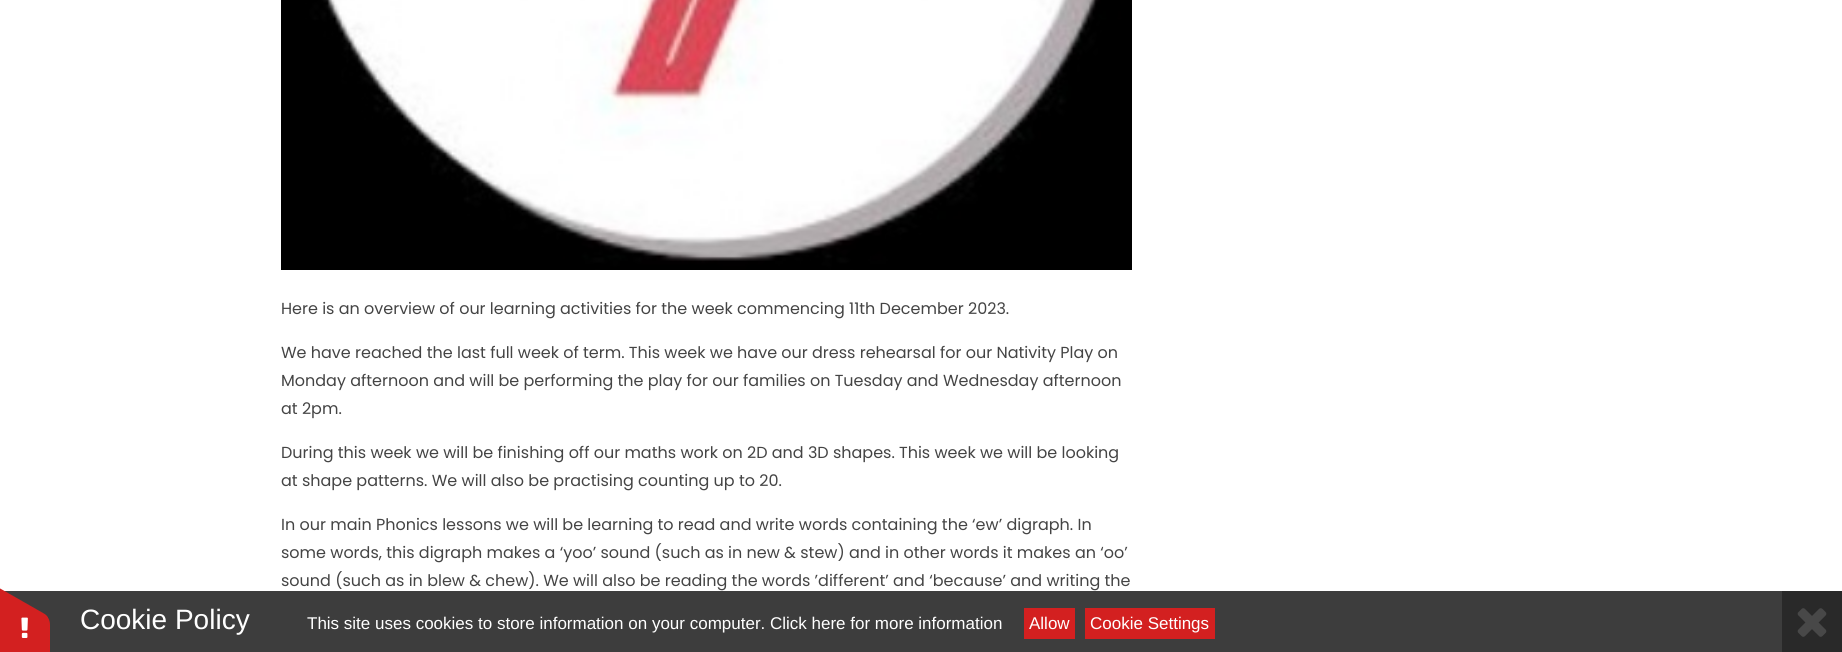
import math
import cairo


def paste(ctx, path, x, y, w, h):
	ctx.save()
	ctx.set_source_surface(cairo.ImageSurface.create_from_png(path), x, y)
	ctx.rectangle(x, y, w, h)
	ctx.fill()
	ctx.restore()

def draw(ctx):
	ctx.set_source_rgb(1, 1, 1)
	ctx.paint()
	ctx.set_source_rgb(0.239, 0.239, 0.239)
	ctx.rectangle(4, 591, 1778, 61)
	ctx.fill()
	paste(ctx, 'media/1.png', 281, 0, 851, 270)
	ctx.select_font_face('Poppins')
	ctx.set_font_size(16)
	ctx.set_source_rgb(0.267, 0.267, 0.267)
	for x, y, s in [
		(281, 314, 'Here is an overview of our learning activities for the week commencing 11th December 2023.'),
		(281, 358, 'We have reached the last full week of term. This week we have our dress rehearsal for our Nativity Play on'),
		(281, 386, 'Monday afternoon and will be performing the play for our families on Tuesday and Wednesday afternoon'),
		(281, 414, 'at 2pm.'),
		(281, 458, 'During this week we will be finishing off our maths work on 2D and 3D shapes. This week we will be looking'),
		(281, 486, 'at shape patterns. We will also be practising counting up to 20.'),
		(281, 530, 'In our main Phonics lessons we will be learning to read and write words containing the ‘ew’ digraph. In'),
		(281, 558, 'some words, this digraph makes a ‘yoo’ sound (such as in new & stew) and in other words it makes an ‘oo’'),
		(281, 586, 'sound (such as in blew & chew). We will also be reading the words ’different’ and ‘because’ and writing the'),
	]:
		ctx.move_to(x, y)
		ctx.show_text(s)
	ctx.set_source_rgb(0.827, 0.125, 0.125)
	ctx.new_path()
	ctx.move_to(50, 625)
	ctx.line_to(50, 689)
	ctx.curve_to(50, 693, 48, 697, 46, 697)
	ctx.line_to(-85, 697)
	ctx.curve_to(-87, 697, -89, 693, -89, 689)
	ctx.line_to(-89, 625)
	ctx.curve_to(-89, 620, -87, 617, -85, 617)
	ctx.line_to(46, 617)
	ctx.curve_to(48, 617, 50, 620, 50, 625)
	ctx.close_path()
	ctx.fill()
	ctx.new_path()
	ctx.move_to(-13, 581)
	ctx.line_to(43, 613)
	ctx.curve_to(47, 615, 49, 618, 48, 620)
	ctx.line_to(-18, 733)
	ctx.curve_to(-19, 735, -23, 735, -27, 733)
	ctx.line_to(-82, 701)
	ctx.curve_to(-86, 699, -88, 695, -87, 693)
	ctx.line_to(-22, 580)
	ctx.curve_to(-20, 578, -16, 579, -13, 581)
	ctx.close_path()
	ctx.fill()
	paste(ctx, 'media/2.png', 21, 617, 7, 21)
	ctx.select_font_face('Liberation Sans')
	ctx.set_font_size(28)
	ctx.set_source_rgb(1, 1, 1)
	ctx.move_to(80, 629)
	ctx.show_text('Cookie Policy')
	ctx.set_font_size(17)
	ctx.move_to(307, 629)
	ctx.show_text('This site uses cookies to store information on your computer. Click here for more information')
	ctx.set_source_rgb(0.827, 0.125, 0.125)
	ctx.rectangle(1024, 608, 51, 31)
	ctx.fill()
	ctx.set_source_rgb(1, 1, 1)
	ctx.move_to(1029, 629)
	ctx.show_text('Allow')
	ctx.set_source_rgb(0.827, 0.125, 0.125)
	ctx.rectangle(1085, 608, 130, 31)
	ctx.fill()
	ctx.set_source_rgb(1, 1, 1)
	ctx.move_to(1090, 629)
	ctx.show_text('Cookie Settings')
	ctx.set_source_rgb(0.161, 0.161, 0.161)
	ctx.rectangle(1782, 591, 60, 61)
	ctx.fill()
	paste(ctx, 'media/3.png', 1797, 608, 30, 29)


surface = cairo.ImageSurface(cairo.FORMAT_RGB24, 1842, 652)
ctx = cairo.Context(surface)
options = cairo.FontOptions()
options.set_hint_metrics(cairo.HINT_METRICS_OFF)
options.set_hint_style(cairo.HINT_STYLE_NONE)
ctx.set_font_options(options)
ctx.set_miter_limit(4)
draw(ctx)
surface.write_to_png('image.png')
